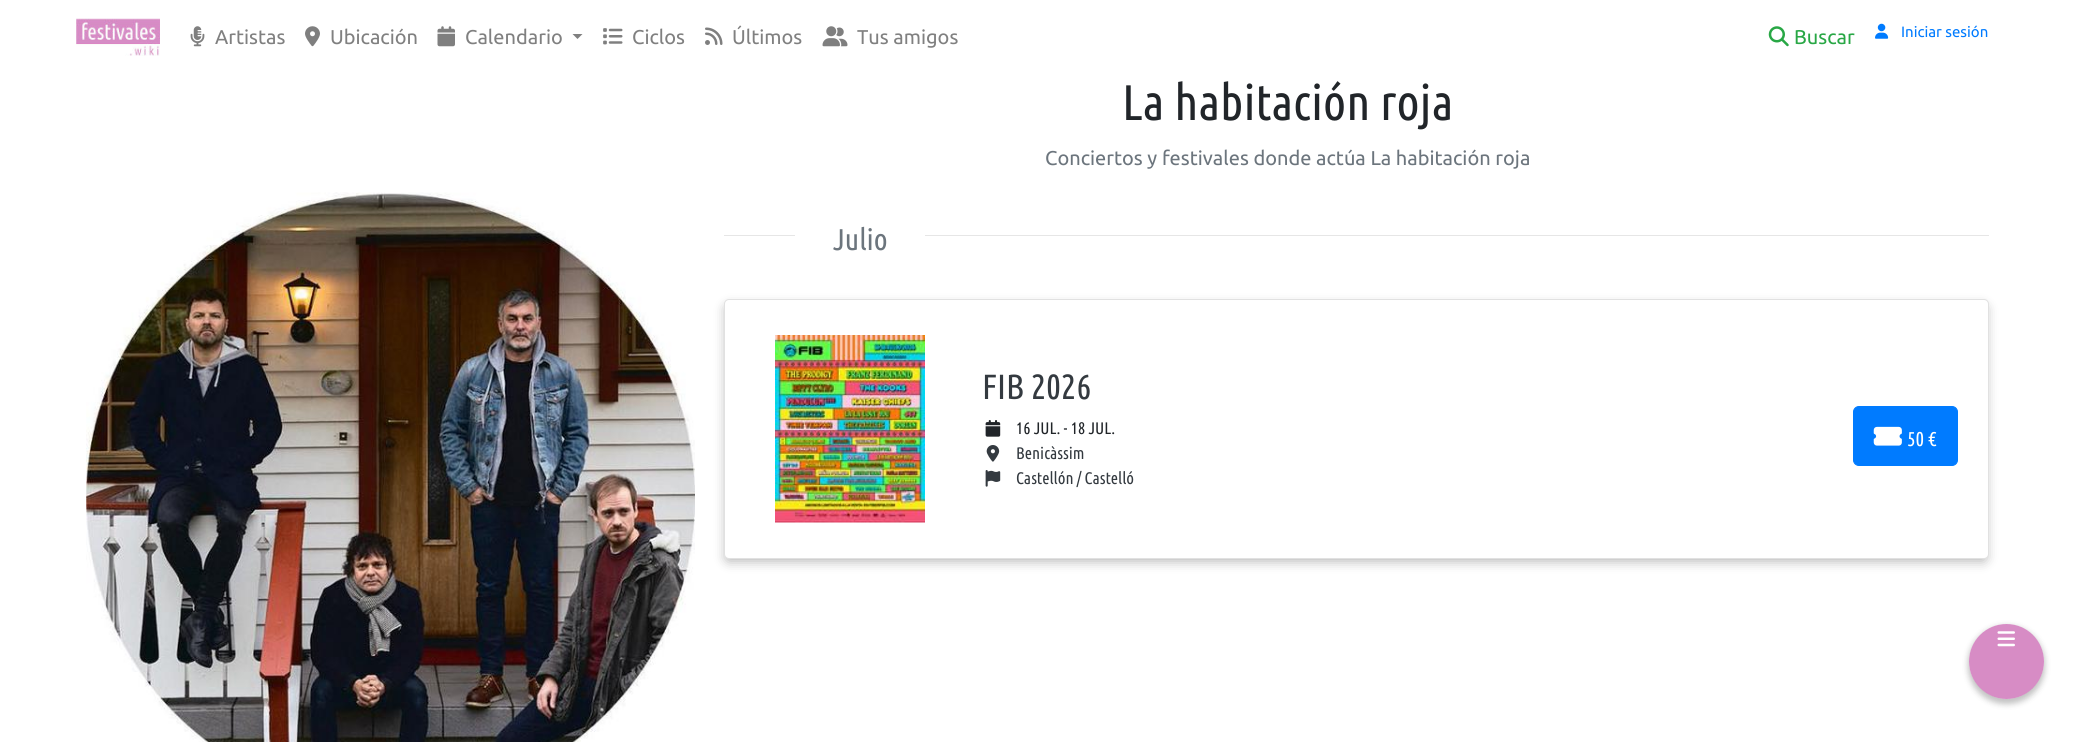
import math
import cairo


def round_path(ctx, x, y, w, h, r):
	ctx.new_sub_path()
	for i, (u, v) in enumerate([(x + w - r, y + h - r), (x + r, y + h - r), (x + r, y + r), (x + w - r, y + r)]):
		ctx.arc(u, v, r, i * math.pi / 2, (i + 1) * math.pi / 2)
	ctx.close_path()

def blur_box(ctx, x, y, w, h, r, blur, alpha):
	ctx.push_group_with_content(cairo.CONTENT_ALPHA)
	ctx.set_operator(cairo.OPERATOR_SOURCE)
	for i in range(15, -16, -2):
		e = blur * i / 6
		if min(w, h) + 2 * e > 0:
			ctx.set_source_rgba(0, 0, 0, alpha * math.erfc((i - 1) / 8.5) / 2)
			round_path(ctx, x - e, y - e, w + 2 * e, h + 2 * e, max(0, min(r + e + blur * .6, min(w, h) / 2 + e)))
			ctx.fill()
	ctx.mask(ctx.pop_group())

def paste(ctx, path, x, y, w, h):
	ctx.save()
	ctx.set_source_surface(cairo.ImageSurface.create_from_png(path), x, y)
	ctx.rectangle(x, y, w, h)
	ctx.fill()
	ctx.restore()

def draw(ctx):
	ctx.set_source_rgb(1, 1, 1)
	ctx.paint()
	paste(ctx, 'media/1.png', 76, 18, 84, 38)
	paste(ctx, 'media/2.png', 190, 26, 15, 21)
	ctx.select_font_face('Ubuntu')
	ctx.set_font_size(20)
	ctx.set_source_rgb(0.502, 0.502, 0.502)
	ctx.move_to(215, 44)
	ctx.show_text('Artistas')
	paste(ctx, 'media/3.png', 305, 26, 15, 21)
	ctx.move_to(330, 44)
	ctx.show_text('Ubicación')
	paste(ctx, 'media/4.png', 437, 26, 18, 21)
	ctx.move_to(465, 44)
	ctx.show_text('Calendario')
	ctx.new_path()
	ctx.move_to(572.5, 34)
	ctx.line_to(582.5, 34)
	ctx.line_to(577.5, 39)
	ctx.close_path()
	ctx.fill()
	paste(ctx, 'media/5.png', 603, 28, 20, 17)
	ctx.move_to(632, 44)
	ctx.show_text('Ciclos')
	paste(ctx, 'media/6.png', 705, 27, 18, 18)
	ctx.move_to(732, 44)
	ctx.show_text('Últimos')
	paste(ctx, 'media/7.png', 822, 26, 26, 21)
	ctx.move_to(857, 44)
	ctx.show_text('Tus amigos')
	paste(ctx, 'media/8.png', 1768, 26, 21, 21)
	ctx.set_source_rgb(0.157, 0.655, 0.271)
	ctx.move_to(1794, 44)
	ctx.show_text('Buscar')
	paste(ctx, 'media/9.png', 1875, 23, 14, 16)
	ctx.set_font_size(15)
	ctx.set_source_rgb(0, 0.482, 1)
	ctx.move_to(1901, 37)
	ctx.show_text('Iniciar sesión')
	ctx.select_font_face('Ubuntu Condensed')
	ctx.set_font_size(50)
	ctx.set_source_rgb(0.129, 0.145, 0.161)
	ctx.move_to(1122, 120)
	ctx.show_text('La habitación roja')
	ctx.select_font_face('Ubuntu')
	ctx.set_font_size(20)
	ctx.set_source_rgb(0.424, 0.459, 0.49)
	ctx.move_to(1045, 165)
	ctx.show_text('Conciertos y festivales donde actúa La habitación roja')
	paste(ctx, 'media/10.png', 86, 192, 609, 550)
	ctx.set_source_rgb(0.902, 0.902, 0.902)
	ctx.rectangle(724, 235, 71, 1)
	ctx.fill()
	ctx.select_font_face('Ubuntu Condensed')
	ctx.set_font_size(30)
	ctx.set_source_rgb(0.424, 0.459, 0.49)
	ctx.move_to(833, 250)
	ctx.show_text('Julio')
	ctx.set_source_rgb(0.902, 0.902, 0.902)
	ctx.rectangle(925, 235, 1064, 1)
	ctx.fill()
	ctx.set_source_rgb(0, 0, 0)
	blur_box(ctx, 726, 306, 1260, 255, 2.5, 6, 0.3)
	ctx.set_source_rgb(1, 1, 1)
	round_path(ctx, 724, 299, 1265, 260, 5)
	ctx.fill()
	round_path(ctx, 724.5, 299.5, 1264, 259, 4.5)
	ctx.set_source_rgba(0, 0, 0, 0.12)
	ctx.set_line_width(1)
	ctx.stroke()
	paste(ctx, 'media/11.png', 775, 335, 150, 188)
	ctx.set_font_size(35)
	ctx.set_source_rgb(0.204, 0.227, 0.251)
	ctx.move_to(982, 399)
	ctx.show_text('FIB 2026')
	paste(ctx, 'media/12.png', 985, 420, 16, 17)
	ctx.set_font_size(16.75)
	ctx.set_source_rgb(0.129, 0.145, 0.161)
	ctx.move_to(1016, 434)
	ctx.show_text('16 JUL. - 18 JUL.')
	paste(ctx, 'media/13.png', 986, 445, 14, 17)
	ctx.set_source_rgb(0.204, 0.227, 0.251)
	ctx.move_to(1016, 459)
	ctx.show_text('Benicàssim')
	paste(ctx, 'media/14.png', 985, 470, 16, 17)
	ctx.move_to(1016, 484)
	ctx.show_text('Castellón / Castelló')
	ctx.set_source_rgb(0, 0.482, 1)
	round_path(ctx, 1853.5, 406.5, 104, 59, 5.5)
	ctx.fill_preserve()
	ctx.stroke()
	paste(ctx, 'media/15.png', 1873, 426, 29, 20)
	ctx.set_font_size(20)
	ctx.set_source_rgb(1, 1, 1)
	ctx.move_to(1907, 446)
	ctx.show_text('50 €')
	ctx.set_source_rgb(0.843, 0.549, 0.773)
	ctx.new_path()
	ctx.arc(2006.5, 661.5, 37.5, 0, 2 * math.pi)
	ctx.fill()
	paste(ctx, 'media/16.png', 1997, 631, 18, 16)
	ctx.save()
	ctx.set_fill_rule(cairo.FILL_RULE_EVEN_ODD)
	ctx.new_path()
	ctx.move_to(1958, 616)
	ctx.line_to(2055, 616)
	ctx.line_to(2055, 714)
	ctx.line_to(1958, 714)
	ctx.close_path()
	ctx.move_to(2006.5, 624)
	ctx.curve_to(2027, 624, 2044, 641, 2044, 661.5)
	ctx.curve_to(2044, 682, 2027, 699, 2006.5, 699)
	ctx.curve_to(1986, 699, 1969, 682, 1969, 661.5)
	ctx.curve_to(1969, 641, 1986, 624, 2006.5, 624)
	ctx.close_path()
	ctx.clip()
	ctx.set_source_rgb(0.2, 0.2, 0.2)
	blur_box(ctx, 1968, 626, 77, 78, 38.5, 3, 0.3)
	ctx.restore()


surface = cairo.ImageSurface(cairo.FORMAT_RGB24, 2074, 742)
ctx = cairo.Context(surface)
options = cairo.FontOptions()
options.set_hint_metrics(cairo.HINT_METRICS_OFF)
options.set_hint_style(cairo.HINT_STYLE_NONE)
ctx.set_font_options(options)
ctx.set_miter_limit(4)
draw(ctx)
surface.write_to_png('image.png')
